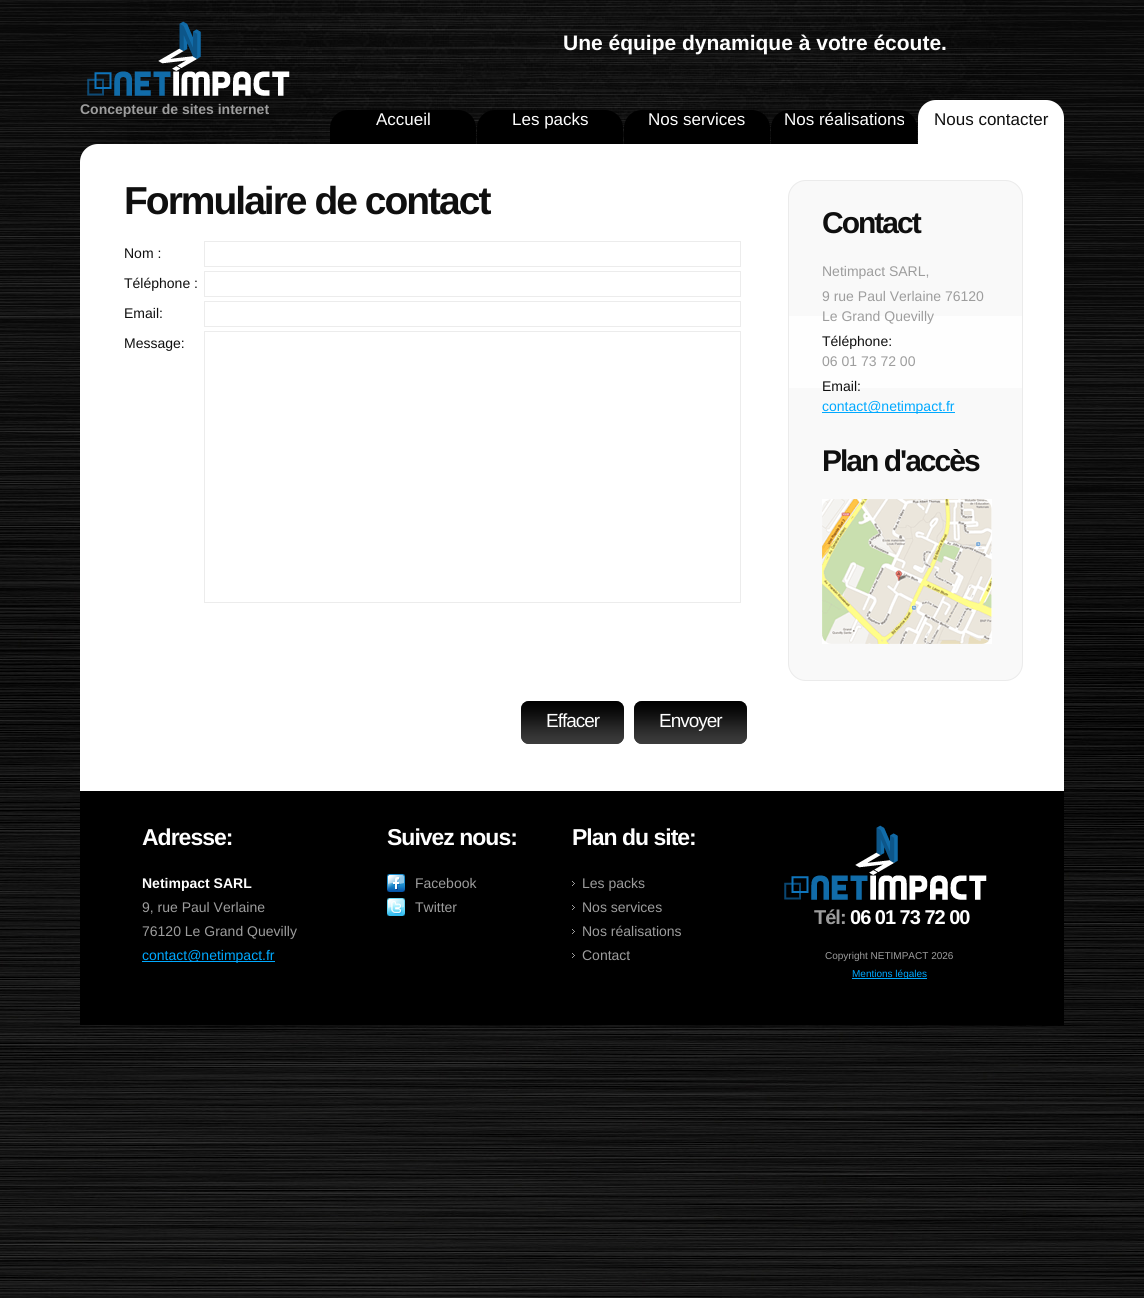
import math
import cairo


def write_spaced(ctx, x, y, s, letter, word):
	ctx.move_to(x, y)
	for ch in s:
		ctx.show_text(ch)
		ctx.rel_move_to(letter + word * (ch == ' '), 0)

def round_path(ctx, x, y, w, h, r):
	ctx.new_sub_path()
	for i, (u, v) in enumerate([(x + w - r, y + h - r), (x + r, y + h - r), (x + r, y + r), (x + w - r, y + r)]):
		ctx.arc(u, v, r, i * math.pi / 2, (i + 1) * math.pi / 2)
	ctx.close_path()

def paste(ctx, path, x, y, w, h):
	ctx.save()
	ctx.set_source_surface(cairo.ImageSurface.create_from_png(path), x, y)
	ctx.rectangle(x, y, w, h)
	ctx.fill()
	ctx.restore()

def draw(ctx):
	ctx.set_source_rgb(1, 1, 1)
	ctx.paint()
	paste(ctx, 'media/1.png', 0, 0, 1144, 1298)
	paste(ctx, 'media/2.png', 127, 0, 894, 144)
	ctx.select_font_face('Liberation Sans', cairo.FONT_SLANT_NORMAL, cairo.FONT_WEIGHT_BOLD)
	ctx.set_font_size(21)
	ctx.set_source_rgb(0.996, 0.996, 0.996)
	ctx.move_to(563, 50)
	ctx.show_text('Une équipe dynamique à votre écoute.')
	paste(ctx, 'media/3.png', 87, 21, 203, 75)
	ctx.set_font_size(14)
	ctx.set_source_rgb(0.616, 0.616, 0.616)
	ctx.move_to(80, 114)
	ctx.show_text('Concepteur de sites internet')
	ctx.set_source_rgb(0, 0, 0)
	ctx.new_path()
	ctx.move_to(348, 110)
	ctx.line_to(458, 110)
	ctx.curve_to(468, 110, 476, 118, 476, 128)
	ctx.line_to(476, 167)
	ctx.line_to(330, 167)
	ctx.line_to(330, 128)
	ctx.curve_to(330, 118, 338, 110, 348, 110)
	ctx.close_path()
	ctx.fill()
	ctx.select_font_face('Liberation Sans')
	ctx.set_font_size(17)
	ctx.set_source_rgb(0.996, 0.996, 0.996)
	ctx.move_to(376, 125)
	ctx.show_text('Accueil')
	ctx.set_source_rgb(0, 0, 0)
	ctx.new_path()
	ctx.move_to(495, 110)
	ctx.line_to(605, 110)
	ctx.curve_to(615, 110, 623, 118, 623, 128)
	ctx.line_to(623, 167)
	ctx.line_to(477, 167)
	ctx.line_to(477, 128)
	ctx.curve_to(477, 118, 485, 110, 495, 110)
	ctx.close_path()
	ctx.fill()
	ctx.set_source_rgb(0.996, 0.996, 0.996)
	ctx.move_to(512, 125)
	ctx.show_text('Les packs')
	ctx.set_source_rgb(0, 0, 0)
	ctx.new_path()
	ctx.move_to(642, 110)
	ctx.line_to(752, 110)
	ctx.curve_to(762, 110, 770, 118, 770, 128)
	ctx.line_to(770, 167)
	ctx.line_to(624, 167)
	ctx.line_to(624, 128)
	ctx.curve_to(624, 118, 632, 110, 642, 110)
	ctx.close_path()
	ctx.fill()
	ctx.set_source_rgb(0.996, 0.996, 0.996)
	ctx.move_to(648, 125)
	ctx.show_text('Nos services')
	ctx.set_source_rgb(0, 0, 0)
	ctx.new_path()
	ctx.move_to(789, 110)
	ctx.line_to(899, 110)
	ctx.curve_to(909, 110, 917, 118, 917, 128)
	ctx.line_to(917, 167)
	ctx.line_to(771, 167)
	ctx.line_to(771, 128)
	ctx.curve_to(771, 118, 779, 110, 789, 110)
	ctx.close_path()
	ctx.fill()
	ctx.set_source_rgb(0.996, 0.996, 0.996)
	ctx.move_to(784, 125)
	ctx.show_text('Nos réalisations')
	ctx.set_source_rgb(1, 1, 1)
	ctx.new_path()
	ctx.move_to(936, 100)
	ctx.line_to(1046, 100)
	ctx.curve_to(1056, 100, 1064, 108, 1064, 118)
	ctx.line_to(1064, 167)
	ctx.line_to(918, 167)
	ctx.line_to(918, 118)
	ctx.curve_to(918, 108, 926, 100, 936, 100)
	ctx.close_path()
	ctx.fill()
	ctx.set_source_rgb(0.059, 0.059, 0.059)
	ctx.move_to(934, 125)
	ctx.show_text('Nous contacter')
	ctx.set_source_rgb(1, 1, 1)
	ctx.new_path()
	ctx.move_to(98, 144)
	ctx.line_to(1046, 144)
	ctx.curve_to(1056, 144, 1064, 152, 1064, 162)
	ctx.line_to(1064, 791)
	ctx.line_to(80, 791)
	ctx.line_to(80, 162)
	ctx.curve_to(80, 152, 88, 144, 98, 144)
	ctx.close_path()
	ctx.fill()
	ctx.select_font_face('Liberation Sans', cairo.FONT_SLANT_NORMAL, cairo.FONT_WEIGHT_BOLD)
	ctx.set_font_size(39)
	ctx.set_source_rgb(0.059, 0.059, 0.059)
	write_spaced(ctx, 124, 214, 'Formulaire de contact', -2, 0)
	ctx.select_font_face('Liberation Sans')
	ctx.set_font_size(14)
	ctx.move_to(124, 258)
	ctx.show_text('Nom :')
	ctx.rectangle(204.5, 241.5, 536, 25)
	ctx.set_source_rgb(0.922, 0.922, 0.922)
	ctx.set_line_width(1)
	ctx.stroke()
	ctx.set_source_rgb(0.059, 0.059, 0.059)
	ctx.move_to(124, 288)
	ctx.show_text('Téléphone :')
	ctx.rectangle(204.5, 271.5, 536, 25)
	ctx.set_source_rgb(0.922, 0.922, 0.922)
	ctx.stroke()
	ctx.set_source_rgb(0.059, 0.059, 0.059)
	ctx.move_to(124, 318)
	ctx.show_text('Email:')
	ctx.rectangle(204.5, 301.5, 536, 25)
	ctx.set_source_rgb(0.922, 0.922, 0.922)
	ctx.stroke()
	ctx.set_source_rgb(0.059, 0.059, 0.059)
	ctx.move_to(124, 348)
	ctx.show_text('Message:')
	ctx.rectangle(204.5, 331.5, 536, 271)
	ctx.set_source_rgb(0.922, 0.922, 0.922)
	ctx.stroke()
	ctx.set_source_rgb(0.235, 0.235, 0.235)
	round_path(ctx, 521, 701, 103, 43, 8)
	ctx.fill()
	paste(ctx, 'media/4.png', 521, 701, 103, 43)
	ctx.set_font_size(19)
	ctx.set_source_rgb(0.996, 0.996, 0.996)
	write_spaced(ctx, 546, 727, 'Effacer', -1, 0)
	ctx.set_source_rgb(0.235, 0.235, 0.235)
	round_path(ctx, 634, 701, 113, 43, 8)
	ctx.fill()
	paste(ctx, 'media/5.png', 634, 701, 113, 43)
	ctx.set_source_rgb(0.996, 0.996, 0.996)
	write_spaced(ctx, 659, 727, 'Envoyer', -1, 0)
	ctx.set_source_rgb(0.976, 0.976, 0.976)
	round_path(ctx, 788, 180, 235, 501, 18)
	ctx.fill()
	ctx.set_source_rgb(0.996, 0.996, 0.996)
	ctx.rectangle(789, 316, 233, 72)
	ctx.fill()
	round_path(ctx, 788.5, 180.5, 234, 500, 17.5)
	ctx.set_source_rgb(0.918, 0.918, 0.918)
	ctx.stroke()
	ctx.select_font_face('Liberation Sans', cairo.FONT_SLANT_NORMAL, cairo.FONT_WEIGHT_BOLD)
	ctx.set_font_size(30)
	ctx.set_source_rgb(0.059, 0.059, 0.059)
	write_spaced(ctx, 822, 233, 'Contact', -2, 0)
	ctx.select_font_face('Liberation Sans')
	ctx.set_font_size(14)
	ctx.set_source_rgb(0.616, 0.616, 0.616)
	for x, y, s in [
		(822, 276, 'Netimpact SARL,'),
		(822, 301, '9 rue Paul Verlaine 76120'),
		(822, 321, 'Le Grand Quevilly'),
	]:
		ctx.move_to(x, y)
		ctx.show_text(s)
	ctx.set_source_rgb(0.059, 0.059, 0.059)
	ctx.move_to(822, 346)
	ctx.show_text('Téléphone:')
	ctx.set_source_rgb(0.616, 0.616, 0.616)
	ctx.move_to(822, 366)
	ctx.show_text('06 01 73 72 00')
	ctx.set_source_rgb(0.059, 0.059, 0.059)
	ctx.move_to(822, 391)
	ctx.show_text('Email:')
	ctx.set_source_rgb(0, 0.663, 1)
	ctx.rectangle(822, 412, 133, 1)
	ctx.fill()
	ctx.move_to(822, 411)
	ctx.show_text('contact@netimpact.fr')
	ctx.select_font_face('Liberation Sans', cairo.FONT_SLANT_NORMAL, cairo.FONT_WEIGHT_BOLD)
	ctx.set_font_size(30)
	ctx.set_source_rgb(0.059, 0.059, 0.059)
	write_spaced(ctx, 822, 471, 'Plan d\'accès', -2, 0)
	paste(ctx, 'media/6.png', 822, 499, 170, 145)
	ctx.set_source_rgb(0, 0, 0)
	ctx.rectangle(80, 791, 984, 234)
	ctx.fill()
	ctx.set_font_size(23)
	ctx.set_source_rgb(0.996, 0.996, 0.996)
	write_spaced(ctx, 142, 845, 'Adresse:', -1, 0)
	ctx.set_font_size(14)
	ctx.move_to(142, 888)
	ctx.show_text('Netimpact SARL')
	ctx.select_font_face('Liberation Sans')
	ctx.set_source_rgb(0.616, 0.616, 0.616)
	ctx.move_to(142, 912)
	ctx.show_text('9, rue Paul Verlaine')
	ctx.move_to(142, 936)
	ctx.show_text('76120 Le Grand Quevilly')
	ctx.set_source_rgb(0, 0.663, 1)
	ctx.rectangle(142, 961, 133, 1)
	ctx.fill()
	ctx.move_to(142, 960)
	ctx.show_text('contact@netimpact.fr')
	ctx.select_font_face('Liberation Sans', cairo.FONT_SLANT_NORMAL, cairo.FONT_WEIGHT_BOLD)
	ctx.set_font_size(23)
	ctx.set_source_rgb(0.996, 0.996, 0.996)
	write_spaced(ctx, 387, 845, 'Suivez nous:', -1, 0)
	paste(ctx, 'media/7.png', 387, 874, 18, 18)
	ctx.select_font_face('Liberation Sans')
	ctx.set_font_size(14)
	ctx.set_source_rgb(0.616, 0.616, 0.616)
	ctx.move_to(415, 888)
	ctx.show_text('Facebook')
	paste(ctx, 'media/8.png', 387, 898, 18, 18)
	ctx.move_to(415, 912)
	ctx.show_text('Twitter')
	ctx.select_font_face('Liberation Sans', cairo.FONT_SLANT_NORMAL, cairo.FONT_WEIGHT_BOLD)
	ctx.set_font_size(23)
	ctx.set_source_rgb(0.996, 0.996, 0.996)
	write_spaced(ctx, 572, 845, 'Plan du site:', -1, 0)
	paste(ctx, 'media/9.png', 572, 881, 3, 5)
	ctx.select_font_face('Liberation Sans')
	ctx.set_font_size(14)
	ctx.set_source_rgb(0.616, 0.616, 0.616)
	ctx.move_to(582, 888)
	ctx.show_text('Les packs')
	paste(ctx, 'media/9.png', 572, 905, 3, 5)
	ctx.move_to(582, 912)
	ctx.show_text('Nos services')
	paste(ctx, 'media/9.png', 572, 929, 3, 5)
	ctx.move_to(582, 936)
	ctx.show_text('Nos réalisations')
	paste(ctx, 'media/9.png', 572, 953, 3, 5)
	ctx.move_to(582, 960)
	ctx.show_text('Contact')
	paste(ctx, 'media/10.png', 784, 825, 203, 75)
	ctx.select_font_face('Liberation Sans', cairo.FONT_SLANT_NORMAL, cairo.FONT_WEIGHT_BOLD)
	ctx.set_font_size(20)
	write_spaced(ctx, 814, 924, 'Tél:', -1, 0)
	ctx.set_source_rgb(0.996, 0.996, 0.996)
	write_spaced(ctx, 850, 924, '06 01 73 72 00', -1, 0)
	ctx.select_font_face('Liberation Sans')
	ctx.set_font_size(10)
	ctx.set_source_rgb(0.616, 0.616, 0.616)
	ctx.move_to(825, 959)
	ctx.show_text('Copyright NETIMPACT 2026')
	ctx.set_source_rgb(0, 0.663, 1)
	ctx.rectangle(852, 978, 75, 1)
	ctx.fill()
	ctx.move_to(852, 977)
	ctx.show_text('Mentions légales')


surface = cairo.ImageSurface(cairo.FORMAT_RGB24, 1144, 1298)
ctx = cairo.Context(surface)
options = cairo.FontOptions()
options.set_hint_metrics(cairo.HINT_METRICS_OFF)
options.set_hint_style(cairo.HINT_STYLE_NONE)
ctx.set_font_options(options)
ctx.set_miter_limit(4)
draw(ctx)
surface.write_to_png('image.png')
